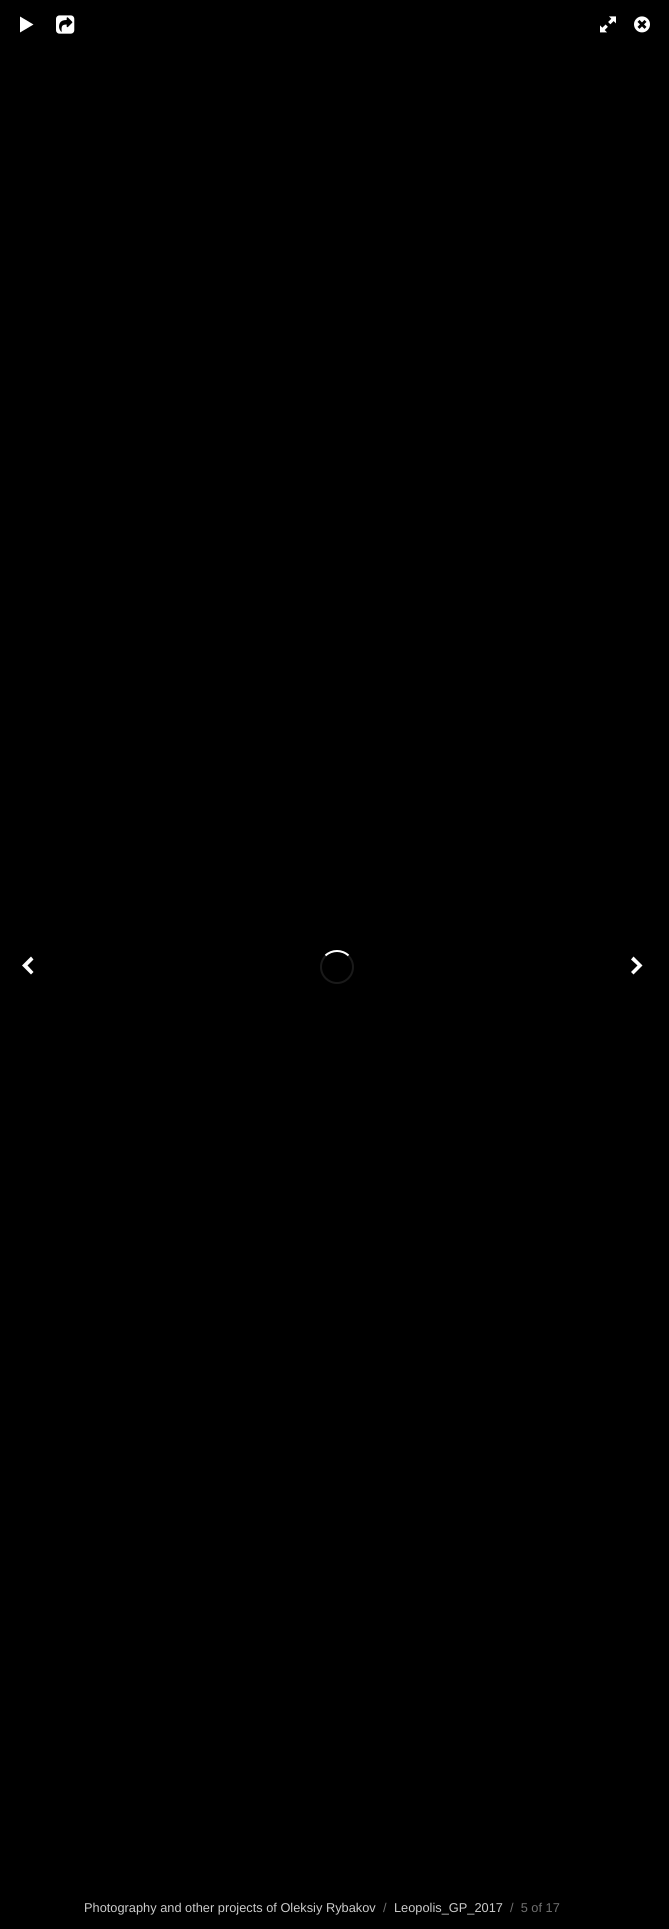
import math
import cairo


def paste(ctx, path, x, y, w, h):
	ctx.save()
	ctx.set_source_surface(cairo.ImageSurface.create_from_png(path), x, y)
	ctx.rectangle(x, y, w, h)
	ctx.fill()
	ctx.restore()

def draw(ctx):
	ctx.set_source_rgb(0, 0, 0)
	ctx.paint()
	ctx.set_source_rgb(1, 1, 1)
	ctx.new_path()
	ctx.move_to(20, 32.5)
	ctx.line_to(20, 16.5)
	ctx.line_to(33.5, 24.5)
	ctx.close_path()
	ctx.fill()
	paste(ctx, 'media/1.png', 56, 15, 19, 19)
	paste(ctx, 'media/2.png', 600, 16, 16, 17)
	paste(ctx, 'media/3.png', 634, 16, 16, 17)
	ctx.new_path()
	ctx.move_to(22, 965.5)
	ctx.line_to(31, 956.5)
	ctx.line_to(33.5, 959.5)
	ctx.line_to(27.5, 965.5)
	ctx.line_to(33.5, 972)
	ctx.line_to(31, 974.5)
	ctx.close_path()
	ctx.fill()
	ctx.arc(337, 967, 16, 0, 2 * math.pi)
	ctx.set_source_rgb(0.102, 0.102, 0.102)
	ctx.stroke()
	ctx.new_path()
	ctx.move_to(325.5, 955.5)
	ctx.curve_to(332, 949.5, 342, 949.5, 348.5, 955.5)
	ctx.set_source_rgb(1, 1, 1)
	ctx.stroke()
	ctx.new_path()
	ctx.move_to(631, 972)
	ctx.line_to(637.5, 965.5)
	ctx.line_to(631, 959.5)
	ctx.line_to(633.5, 956.5)
	ctx.line_to(642.5, 965.5)
	ctx.line_to(633.5, 974.5)
	ctx.close_path()
	ctx.fill()
	ctx.select_font_face('Liberation Sans')
	ctx.set_font_size(12.8)
	ctx.set_source_rgb(0.8, 0.8, 0.8)
	ctx.move_to(84, 1912)
	ctx.show_text('Photography and other projects of Oleksiy Rybakov')
	ctx.set_source_rgb(0.439, 0.439, 0.439)
	ctx.move_to(383, 1912)
	ctx.show_text('/')
	ctx.set_source_rgb(0.8, 0.8, 0.8)
	ctx.move_to(394, 1912)
	ctx.show_text('Leopolis_GP_2017')
	ctx.set_source_rgb(0.439, 0.439, 0.439)
	ctx.move_to(510, 1912)
	ctx.show_text('/  5 of 17')


surface = cairo.ImageSurface(cairo.FORMAT_RGB24, 669, 1929)
ctx = cairo.Context(surface)
options = cairo.FontOptions()
options.set_hint_metrics(cairo.HINT_METRICS_OFF)
options.set_hint_style(cairo.HINT_STYLE_NONE)
ctx.set_font_options(options)
ctx.set_miter_limit(4)
draw(ctx)
surface.write_to_png('image.png')
